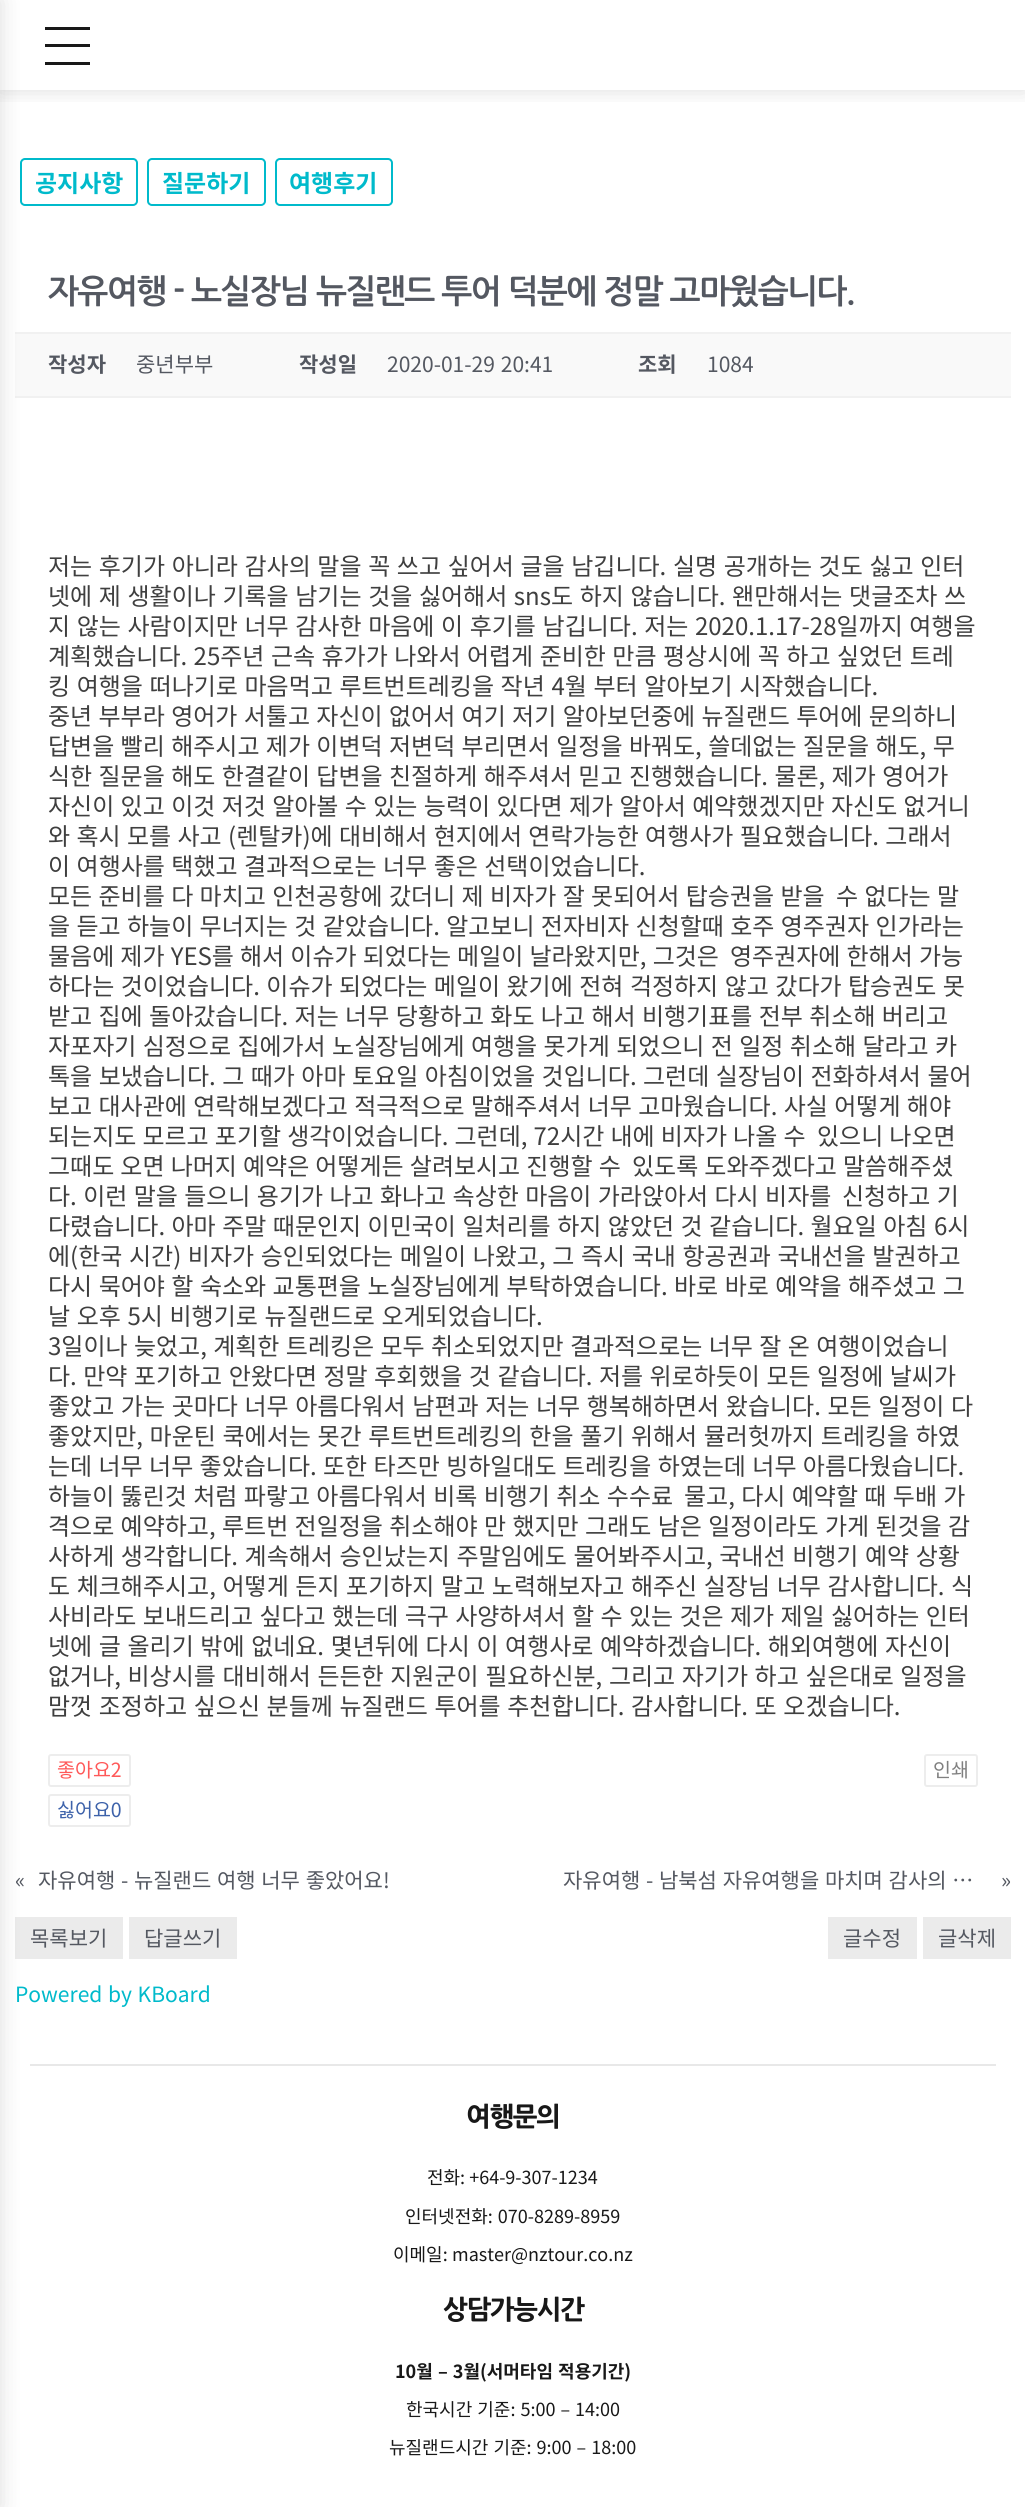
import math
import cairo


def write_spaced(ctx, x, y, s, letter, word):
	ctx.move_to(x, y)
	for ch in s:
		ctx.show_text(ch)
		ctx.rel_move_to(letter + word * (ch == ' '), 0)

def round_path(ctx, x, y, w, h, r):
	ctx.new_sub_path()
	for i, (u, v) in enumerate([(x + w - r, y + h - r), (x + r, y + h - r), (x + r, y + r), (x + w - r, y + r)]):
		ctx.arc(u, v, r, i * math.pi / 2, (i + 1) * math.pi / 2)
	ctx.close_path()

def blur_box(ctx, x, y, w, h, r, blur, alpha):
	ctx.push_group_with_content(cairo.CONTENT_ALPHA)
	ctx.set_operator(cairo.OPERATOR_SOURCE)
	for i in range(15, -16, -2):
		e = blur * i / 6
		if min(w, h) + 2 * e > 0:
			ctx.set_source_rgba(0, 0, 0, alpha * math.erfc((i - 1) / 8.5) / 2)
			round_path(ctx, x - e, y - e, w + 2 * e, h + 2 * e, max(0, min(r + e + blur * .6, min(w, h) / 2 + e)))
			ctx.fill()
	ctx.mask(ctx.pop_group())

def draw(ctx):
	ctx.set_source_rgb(1, 1, 1)
	ctx.paint()
	ctx.save()
	ctx.rectangle(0, 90, 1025, 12)
	ctx.clip()
	ctx.set_source_rgb(0.094, 0.094, 0.094)
	blur_box(ctx, 0, 0, 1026, 90, 0, 11, 0.15)
	ctx.restore()
	ctx.set_source_rgb(0.094, 0.094, 0.094)
	ctx.rectangle(45, 27, 45, 3)
	ctx.rectangle(45, 44, 45, 3)
	ctx.rectangle(45, 62, 45, 3)
	ctx.fill()
	round_path(ctx, 21, 159, 116, 46, 4)
	ctx.set_source_rgb(0, 0.729, 0.796)
	ctx.stroke()
	ctx.set_source_rgb(0.976, 0.976, 0.976)
	ctx.rectangle(15, 334, 996, 62)
	ctx.fill()
	ctx.set_source_rgb(0.945, 0.945, 0.945)
	ctx.rectangle(15, 332, 996, 2)
	ctx.rectangle(15, 396, 996, 2)
	ctx.fill()
	ctx.set_source_rgb(0.918, 0.918, 0.918)
	ctx.rectangle(15, 1917, 108, 42)
	ctx.fill()
	ctx.set_source_rgb(0.91, 0.91, 0.91)
	ctx.rectangle(30, 2064, 966, 2)
	ctx.fill()
	ctx.set_source_rgb(0.094, 0.094, 0.094)
	blur_box(ctx, -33, 0, 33, 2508, 0, 11, 0.15)
	ctx.select_font_face('Noto Sans KR', cairo.FONT_SLANT_NORMAL, cairo.FONT_WEIGHT_BOLD)
	ctx.set_font_size(24)
	ctx.set_source_rgb(0, 0.729, 0.796)
	ctx.move_to(35, 192)
	ctx.show_text('공지사항')
	round_path(ctx, 148, 159, 117, 46, 4)
	ctx.stroke()
	ctx.move_to(162, 192)
	ctx.show_text('질문하기')
	round_path(ctx, 276, 159, 116, 46, 4)
	ctx.stroke()
	ctx.move_to(289, 192)
	ctx.show_text('여행후기')
	ctx.select_font_face('NanumGothic', cairo.FONT_SLANT_NORMAL, cairo.FONT_WEIGHT_BOLD)
	ctx.set_font_size(33)
	ctx.set_source_rgb(0.329, 0.345, 0.38)
	write_spaced(ctx, 48, 303, '자유여행 - 노실장님 뉴질랜드 투어 덕분에 정말 고마웠습니다.', -1.65, 0)
	ctx.select_font_face('Noto Sans KR', cairo.FONT_SLANT_NORMAL, cairo.FONT_WEIGHT_BOLD)
	ctx.set_font_size(21)
	ctx.move_to(48, 372)
	ctx.show_text('작성자')
	ctx.select_font_face('Noto Sans KR')
	ctx.move_to(136, 372)
	ctx.show_text('중년부부')
	ctx.select_font_face('Noto Sans KR', cairo.FONT_SLANT_NORMAL, cairo.FONT_WEIGHT_BOLD)
	ctx.move_to(299, 372)
	ctx.show_text('작성일')
	ctx.select_font_face('Noto Sans KR')
	write_spaced(ctx, 387, 372, '2020-01-29 20:41', 0, 1.25)
	ctx.select_font_face('Noto Sans KR', cairo.FONT_SLANT_NORMAL, cairo.FONT_WEIGHT_BOLD)
	ctx.move_to(638, 372)
	ctx.show_text('조회')
	ctx.select_font_face('Noto Sans KR')
	ctx.move_to(707, 372)
	ctx.show_text('1084')
	ctx.set_font_size(24)
	ctx.set_source_rgb(0.247, 0.247, 0.247)
	for x, y, s in [
		(48, 575, '저는 후기가 아니라 감사의 말을 꼭 쓰고 싶어서 글을 남깁니다. 실명 공개하는 것도 싫고 인터'),
		(48, 605, '넷에 제 생활이나 기록을 남기는 것을 싫어해서 sns도 하지 않습니다. 왠만해서는 댓글조차 쓰'),
		(48, 635, '지 않는 사람이지만 너무 감사한 마음에 이 후기를 남깁니다. 저는 2020.1.17-28일까지 여행을'),
	]:
		write_spaced(ctx, x, y, s, 0, 1.25)
	write_spaced(ctx, 48, 665, '계획했습니다. 25주년 근속 휴가가 나와서 어렵게 준비한 만큼 평상시에 꼭 하고 싶었던 트레', 0, 1.1)
	write_spaced(ctx, 48, 695, '킹 여행을 떠나기로 마음먹고 루트번트레킹을 작년 4월 부터 알아보기 시작했습니다.', 0, 1.25)
	for x, y, s in [
		(48, 725, '중년 부부라 영어가 서툴고 자신이 없어서 여기 저기 알아보던중에 뉴질랜드 투어에 문의하니'),
		(48, 755, '답변을 빨리 해주시고 제가 이변덕 저변덕 부리면서 일정을 바꿔도, 쓸데없는 질문을 해도, 무'),
		(48, 785, '식한 질문을 해도 한결같이 답변을 친절하게 해주셔서 믿고 진행했습니다. 물론, 제가 영어가'),
		(48, 815, '자신이 있고 이것 저것 알아볼 수 있는 능력이 있다면 제가 알아서 예약했겠지만 자신도 없거니'),
		(48, 845, '와 혹시 모를 사고 (렌탈카)에 대비해서 현지에서 연락가능한 여행사가 필요했습니다. 그래서'),
	]:
		write_spaced(ctx, x, y, s, 0, 1)
	write_spaced(ctx, 48, 875, '이 여행사를 택했고 결과적으로는 너무 좋은 선택이었습니다.', 0, 1.1)
	write_spaced(ctx, 48, 905, '모든 준비를 다 마치고 인천공항에 갔더니 제 비자가 잘 못되어서 탑승권을 받을', 0, 1)
	write_spaced(ctx, 836, 905, '수 없다는 말', 0, 1)
	write_spaced(ctx, 48, 935, '을 듣고 하늘이 무너지는 것 같았습니다. 알고보니 전자비자 신청할때 호주 영주권자 인가라는', 0, 1)
	write_spaced(ctx, 48, 965, '물음에 제가 YES를 해서 이슈가 되었다는 메일이 날라왔지만, 그것은', 0, 0.75)
	write_spaced(ctx, 730, 965, '영주권자에 한해서 가능', 0, 0.75)
	write_spaced(ctx, 48, 995, '하다는 것이었습니다. 이슈가 되었다는 메일이 왔기에 전혀 걱정하지 않고 갔다가 탑승권도 못', 0, 1.1)
	write_spaced(ctx, 48, 1025, '받고 집에 돌아갔습니다. 저는 너무 당황하고 화도 나고 해서 비행기표를 전부 취소해 버리고', 0, 1)
	write_spaced(ctx, 48, 1055, '자포자기 심정으로 집에가서 노실장님에게 여행을 못가게 되었으니 전 일정 취소해 달라고 카', 0, 1)
	write_spaced(ctx, 48, 1085, '톡을 보냈습니다. 그 때가 아마 토요일 아침이었을 것입니다. 그런데 실장님이 전화하셔서 물어', 0, 1.1)
	write_spaced(ctx, 48, 1115, '보고 대사관에 연락해보겠다고 적극적으로 말해주셔서 너무 고마웠습니다. 사실 어떻게 해야', 0, 1)
	write_spaced(ctx, 48, 1145, '되는지도 모르고 포기할 생각이었습니다. 그런데, 72시간 내에 비자가 나올 수', 0, 0.75)
	write_spaced(ctx, 817, 1145, '있으니 나오면', 0, 0.75)
	write_spaced(ctx, 48, 1175, '그때도 오면 나머지 예약은 어떻게든 살려보시고 진행할 수', 0, 0.75)
	write_spaced(ctx, 632, 1175, '있도록 도와주겠다고 말씀해주셨', 0, 0.75)
	write_spaced(ctx, 48, 1205, '다. 이런 말을 들으니 용기가 나고 화나고 속상한 마음이 가라앉아서 다시 비자를', 0, 1)
	write_spaced(ctx, 842, 1205, '신청하고 기', 0, 1)
	write_spaced(ctx, 48, 1235, '다렸습니다. 아마 주말 때문인지 이민국이 일처리를 하지 않았던 것 같습니다. 월요일 아침 6시', 0, 1.1)
	write_spaced(ctx, 48, 1265, '에(한국 시간) 비자가 승인되었다는 메일이 나왔고, 그 즉시 국내 항공권과 국내선을 발권하고', 0, 1.25)
	write_spaced(ctx, 48, 1295, '다시 묵어야 할 숙소와 교통편을 노실장님에게 부탁하였습니다. 바로 바로 예약을 해주셨고 그', 0, 1.1)
	write_spaced(ctx, 48, 1325, '날 오후 5시 비행기로 뉴질랜드로 오게되었습니다.', 0, 1.25)
	write_spaced(ctx, 48, 1355, '3일이나 늦었고, 계획한 트레킹은 모두 취소되었지만 결과적으로는 너무 잘 온 여행이었습니', 0, 1)
	write_spaced(ctx, 48, 1385, '다. 만약 포기하고 안왔다면 정말 후회했을 것 같습니다. 저를 위로하듯이 모든 일정에 날씨가', 0, 1.1)
	write_spaced(ctx, 48, 1415, '좋았고 가는 곳마다 너무 아름다워서 남편과 저는 너무 행복해하면서 왔습니다. 모든 일정이 다', 0, 1.25)
	write_spaced(ctx, 48, 1445, '좋았지만, 마운틴 쿡에서는 못간 루트번트레킹의 한을 풀기 위해서 뮬러헛까지 트레킹을 하였', 0, 1.25)
	for x, y, s in [
		(48, 1475, '는데 너무 너무 좋았습니다. 또한 타즈만 빙하일대도 트레킹을 하였는데 너무 아름다웠습니다.'),
		(48, 1505, '하늘이 뚫린것 처럼 파랗고 아름다워서 비록 비행기 취소 수수료'),
		(684, 1505, '물고, 다시 예약할 때 두배 가'),
		(48, 1535, '격으로 예약하고, 루트번 전일정을 취소해야 만 했지만 그래도 남은 일정이라도 가게 된것을 감'),
	]:
		write_spaced(ctx, x, y, s, 0, 1)
	write_spaced(ctx, 48, 1565, '사하게 생각합니다. 계속해서 승인났는지 주말임에도 물어봐주시고, 국내선 비행기 예약 상황', 0, 1.25)
	write_spaced(ctx, 48, 1595, '도 체크해주시고, 어떻게 든지 포기하지 말고 노력해보자고 해주신 실장님 너무 감사합니다. 식', 0, 1.25)
	write_spaced(ctx, 48, 1625, '사비라도 보내드리고 싶다고 했는데 극구 사양하셔서 할 수 있는 것은 제가 제일 싫어하는 인터', 0, 1)
	for x, y, s in [
		(48, 1655, '넷에 글 올리기 밖에 없네요. 몇년뒤에 다시 이 여행사로 예약하겠습니다. 해외여행에 자신이'),
		(48, 1685, '없거나, 비상시를 대비해서 든든한 지원군이 필요하신분, 그리고 자기가 하고 싶은대로 일정을'),
		(48, 1715, '맘껏 조정하고 싶으신 분들께 뉴질랜드 투어를 추천합니다. 감사합니다. 또 오겠습니다.'),
	]:
		write_spaced(ctx, x, y, s, 0, 1.25)
	round_path(ctx, 49, 1755, 81, 31, 2)
	ctx.set_source_rgb(0.929, 0.929, 0.929)
	ctx.stroke()
	ctx.set_font_size(19.5)
	ctx.set_source_rgb(1, 0.349, 0.349)
	ctx.move_to(57, 1777)
	ctx.show_text('좋아요2')
	round_path(ctx, 49, 1795, 81, 31, 2)
	ctx.set_source_rgb(0.929, 0.929, 0.929)
	ctx.stroke()
	ctx.set_source_rgb(0.239, 0.384, 0.667)
	ctx.move_to(57, 1817)
	ctx.show_text('싫어요0')
	round_path(ctx, 925, 1755, 52, 31, 2)
	ctx.set_source_rgb(0.929, 0.929, 0.929)
	ctx.stroke()
	ctx.set_source_rgb(0.502, 0.502, 0.502)
	ctx.move_to(933, 1777)
	ctx.show_text('인쇄')
	ctx.set_font_size(21)
	ctx.set_source_rgb(0.329, 0.345, 0.38)
	ctx.move_to(15, 1888)
	ctx.show_text('«')
	write_spaced(ctx, 38, 1888, '자유여행 - 뉴질랜드 여행 너무 좋았어요!', 0, 1)
	write_spaced(ctx, 563, 1888, '자유여행 - 남북섬 자유여행을 마치며 감사의 …', 0, 1)
	ctx.move_to(1001, 1888)
	ctx.show_text('»')
	ctx.move_to(30, 1946)
	ctx.show_text('목록보기')
	ctx.set_source_rgb(0.918, 0.918, 0.918)
	ctx.rectangle(129, 1917, 108, 42)
	ctx.fill()
	ctx.set_source_rgb(0.329, 0.345, 0.38)
	ctx.move_to(144, 1946)
	ctx.show_text('답글쓰기')
	ctx.set_source_rgb(0.918, 0.918, 0.918)
	ctx.rectangle(828, 1917, 89, 42)
	ctx.fill()
	ctx.set_source_rgb(0.329, 0.345, 0.38)
	ctx.move_to(843, 1946)
	ctx.show_text('글수정')
	ctx.set_source_rgb(0.918, 0.918, 0.918)
	ctx.rectangle(923, 1917, 88, 42)
	ctx.fill()
	ctx.set_source_rgb(0.329, 0.345, 0.38)
	ctx.move_to(938, 1946)
	ctx.show_text('글삭제')
	ctx.set_source_rgb(0, 0.729, 0.796)
	write_spaced(ctx, 15, 2002, 'Powered by KBoard', 0, 1)
	ctx.select_font_face('NanumGothic ExtraBold')
	ctx.set_font_size(26.25)
	ctx.set_source_rgb(0.094, 0.094, 0.094)
	write_spaced(ctx, 466, 2126, '여행문의', -1.25, 0)
	ctx.select_font_face('Noto Sans KR')
	ctx.set_font_size(18)
	ctx.move_to(427, 2184)
	ctx.show_text('전화: +64-9-307-1234')
	write_spaced(ctx, 405, 2223, '인터넷전화: 070-8289-8959', 0, 1)
	ctx.move_to(393, 2261)
	ctx.show_text('이메일:')
	ctx.move_to(452, 2261)
	ctx.show_text('master@nztour.co.nz')
	ctx.select_font_face('NanumGothic ExtraBold')
	ctx.set_font_size(26.25)
	write_spaced(ctx, 443, 2319, '상담가능시간', -1.25, 0)
	ctx.select_font_face('Noto Sans KR', cairo.FONT_SLANT_NORMAL, cairo.FONT_WEIGHT_BOLD)
	ctx.set_font_size(18)
	write_spaced(ctx, 395, 2378, '10월 – 3월(서머타임 적용기간)', 0, 1)
	ctx.select_font_face('Noto Sans KR')
	write_spaced(ctx, 406, 2416, '한국시간 기준: 5:00 – 14:00', 0, 1)
	write_spaced(ctx, 389, 2454, '뉴질랜드시간 기준: 9:00 – 18:00', 0, 1)


surface = cairo.ImageSurface(cairo.FORMAT_RGB24, 1025, 2507)
ctx = cairo.Context(surface)
options = cairo.FontOptions()
options.set_hint_metrics(cairo.HINT_METRICS_OFF)
options.set_hint_style(cairo.HINT_STYLE_NONE)
ctx.set_font_options(options)
ctx.set_miter_limit(4)
draw(ctx)
surface.write_to_png('image.png')
